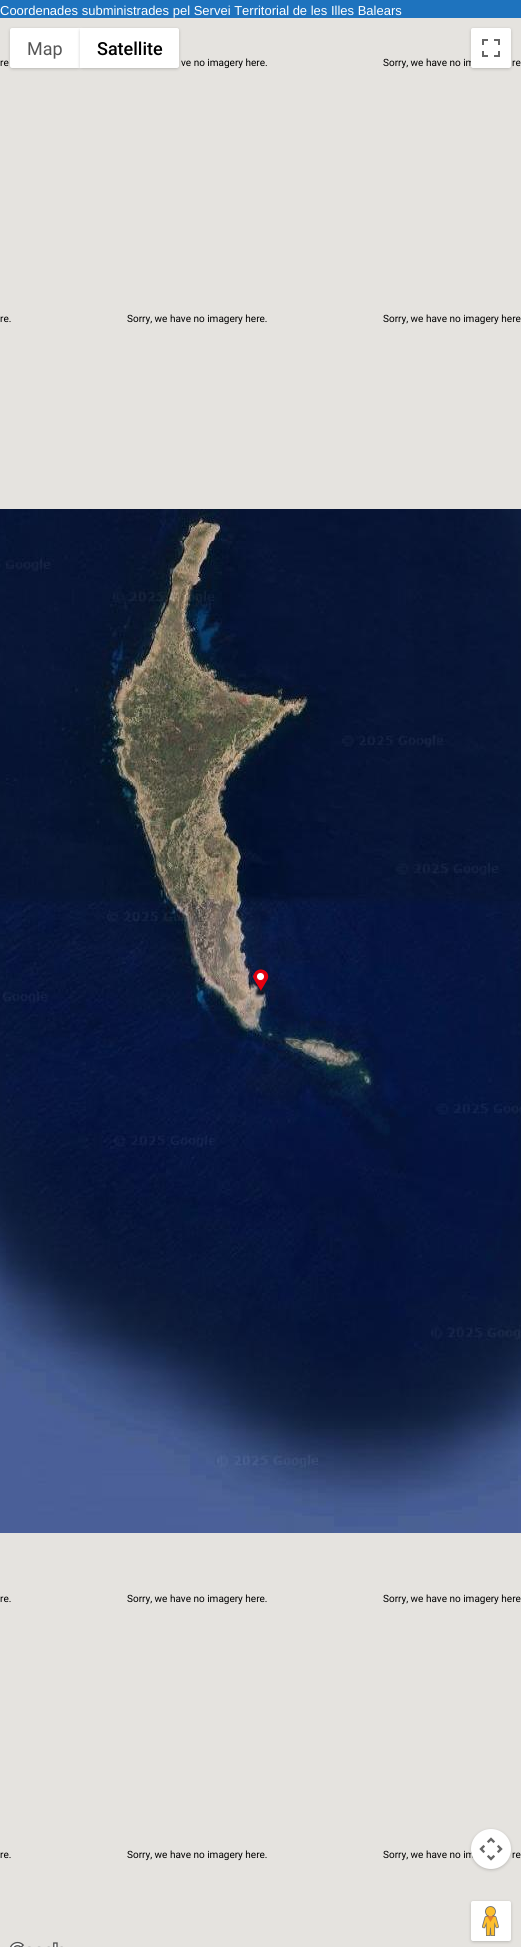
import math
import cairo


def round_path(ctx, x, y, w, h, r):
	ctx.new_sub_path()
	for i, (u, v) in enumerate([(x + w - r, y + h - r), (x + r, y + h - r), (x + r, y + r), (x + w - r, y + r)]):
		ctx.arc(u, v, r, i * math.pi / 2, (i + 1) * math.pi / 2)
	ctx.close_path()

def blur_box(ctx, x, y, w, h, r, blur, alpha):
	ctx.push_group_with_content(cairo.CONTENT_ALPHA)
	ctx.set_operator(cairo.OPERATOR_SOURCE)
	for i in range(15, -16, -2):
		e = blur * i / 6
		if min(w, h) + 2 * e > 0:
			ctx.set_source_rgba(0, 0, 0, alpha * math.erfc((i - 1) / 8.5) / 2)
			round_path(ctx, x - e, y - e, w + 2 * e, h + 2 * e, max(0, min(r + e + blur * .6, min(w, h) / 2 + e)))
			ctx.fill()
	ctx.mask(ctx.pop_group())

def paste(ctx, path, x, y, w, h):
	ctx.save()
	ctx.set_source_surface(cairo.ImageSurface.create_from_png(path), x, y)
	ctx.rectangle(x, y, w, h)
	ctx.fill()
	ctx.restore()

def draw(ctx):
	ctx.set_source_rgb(0.118, 0.451, 0.745)
	ctx.paint()
	ctx.select_font_face('Liberation Sans')
	ctx.set_font_size(13)
	ctx.set_source_rgb(1, 1, 1)
	ctx.move_to(0, 15)
	ctx.show_text('Coordenades subministrades pel Servei Territorial de les Illes Balears')
	ctx.set_source_rgb(0.898, 0.89, 0.875)
	ctx.rectangle(0, 18, 521, 1929)
	ctx.fill()
	ctx.set_source_rgb(0, 0, 0)
	blur_box(ctx, 11, 30, 68, 38, 1, 2, 0.3)
	ctx.set_source_rgb(1, 1, 1)
	ctx.new_path()
	ctx.move_to(12, 28)
	ctx.line_to(80, 28)
	ctx.line_to(80, 68)
	ctx.line_to(12, 68)
	ctx.curve_to(11, 68, 10, 67, 10, 66)
	ctx.line_to(10, 30)
	ctx.curve_to(10, 29, 11, 28, 12, 28)
	ctx.close_path()
	ctx.fill()
	ctx.select_font_face('Roboto')
	ctx.set_font_size(18)
	ctx.set_source_rgb(0.337, 0.337, 0.337)
	ctx.move_to(27, 55)
	ctx.show_text('Map')
	ctx.set_source_rgb(0, 0, 0)
	blur_box(ctx, 81, 30, 97, 38, 1, 2, 0.3)
	ctx.set_source_rgb(1, 1, 1)
	ctx.new_path()
	ctx.move_to(80, 28)
	ctx.line_to(177, 28)
	ctx.curve_to(178, 28, 179, 29, 179, 30)
	ctx.line_to(179, 66)
	ctx.curve_to(179, 67, 178, 68, 177, 68)
	ctx.line_to(80, 68)
	ctx.close_path()
	ctx.fill()
	ctx.select_font_face('Roboto Medium')
	ctx.set_source_rgb(0, 0, 0)
	ctx.move_to(97, 55)
	ctx.show_text('Satellite')
	ctx.set_source_rgb(0, 0, 0)
	blur_box(ctx, 472, 30, 38, 38, 1, 2, 0.3)
	ctx.select_font_face('Roboto')
	ctx.set_font_size(10)
	ctx.set_source_rgb(0, 0, 0)
	ctx.move_to(383, 66)
	ctx.show_text('Sorry, we have no im')
	ctx.set_source_rgb(1, 1, 1)
	round_path(ctx, 471, 28, 40, 40, 2)
	ctx.fill()
	paste(ctx, 'media/1.png', 482, 39, 18, 18)
	ctx.set_source_rgb(0, 0, 0)
	for x, y, s in [
		(0, 66, 're'),
		(181, 66, 've no imagery here.'),
		(512, 66, 're'),
		(0, 322, 're.'),
		(127, 322, 'Sorry, we have no imagery here.'),
		(383, 322, 'Sorry, we have no imagery here'),
	]:
		ctx.move_to(x, y)
		ctx.show_text(s)
	paste(ctx, 'media/2.png', 0, 509, 70, 256)
	paste(ctx, 'media/3.png', 70, 509, 256, 256)
	paste(ctx, 'media/4.png', 326, 509, 195, 256)
	paste(ctx, 'media/5.png', 0, 765, 70, 256)
	paste(ctx, 'media/6.png', 70, 765, 256, 256)
	paste(ctx, 'media/7.png', 326, 765, 195, 256)
	paste(ctx, 'media/8.png', 0, 1021, 70, 256)
	paste(ctx, 'media/9.png', 70, 1021, 256, 256)
	paste(ctx, 'media/10.png', 326, 1021, 195, 256)
	paste(ctx, 'media/11.png', 0, 1277, 70, 256)
	paste(ctx, 'media/12.png', 70, 1277, 256, 256)
	paste(ctx, 'media/13.png', 326, 1277, 195, 256)
	for x, y, s in [
		(0, 1602, 're.'),
		(127, 1602, 'Sorry, we have no imagery here.'),
		(383, 1602, 'Sorry, we have no imagery here'),
		(0, 1858, 're.'),
		(127, 1858, 'Sorry, we have no imagery here.'),
		(383, 1858, 'Sorry, we have no im'),
		(512, 1858, 're'),
	]:
		ctx.move_to(x, y)
		ctx.show_text(s)
	paste(ctx, 'media/14.png', 253, 969, 16, 22)
	paste(ctx, 'media/15.png', 10, 1941, 53, 6)
	ctx.set_source_rgb(0, 0, 0)
	blur_box(ctx, 472, 1831, 38, 38, 19, 2, 0.3)
	ctx.set_source_rgb(1, 1, 1)
	ctx.arc(491, 1849, 20, 0, 2 * math.pi)
	ctx.fill()
	paste(ctx, 'media/16.png', 479, 1837, 24, 24)
	ctx.set_source_rgb(0, 0, 0)
	blur_box(ctx, 472, 1903, 38, 38, 1, 2, 0.3)
	ctx.set_source_rgb(1, 1, 1)
	round_path(ctx, 471, 1901, 40, 40, 2)
	ctx.fill()
	paste(ctx, 'media/17.png', 482, 1906, 17, 30)


surface = cairo.ImageSurface(cairo.FORMAT_RGB24, 521, 1947)
ctx = cairo.Context(surface)
options = cairo.FontOptions()
options.set_hint_metrics(cairo.HINT_METRICS_OFF)
options.set_hint_style(cairo.HINT_STYLE_NONE)
ctx.set_font_options(options)
ctx.set_miter_limit(4)
draw(ctx)
surface.write_to_png('image.png')
